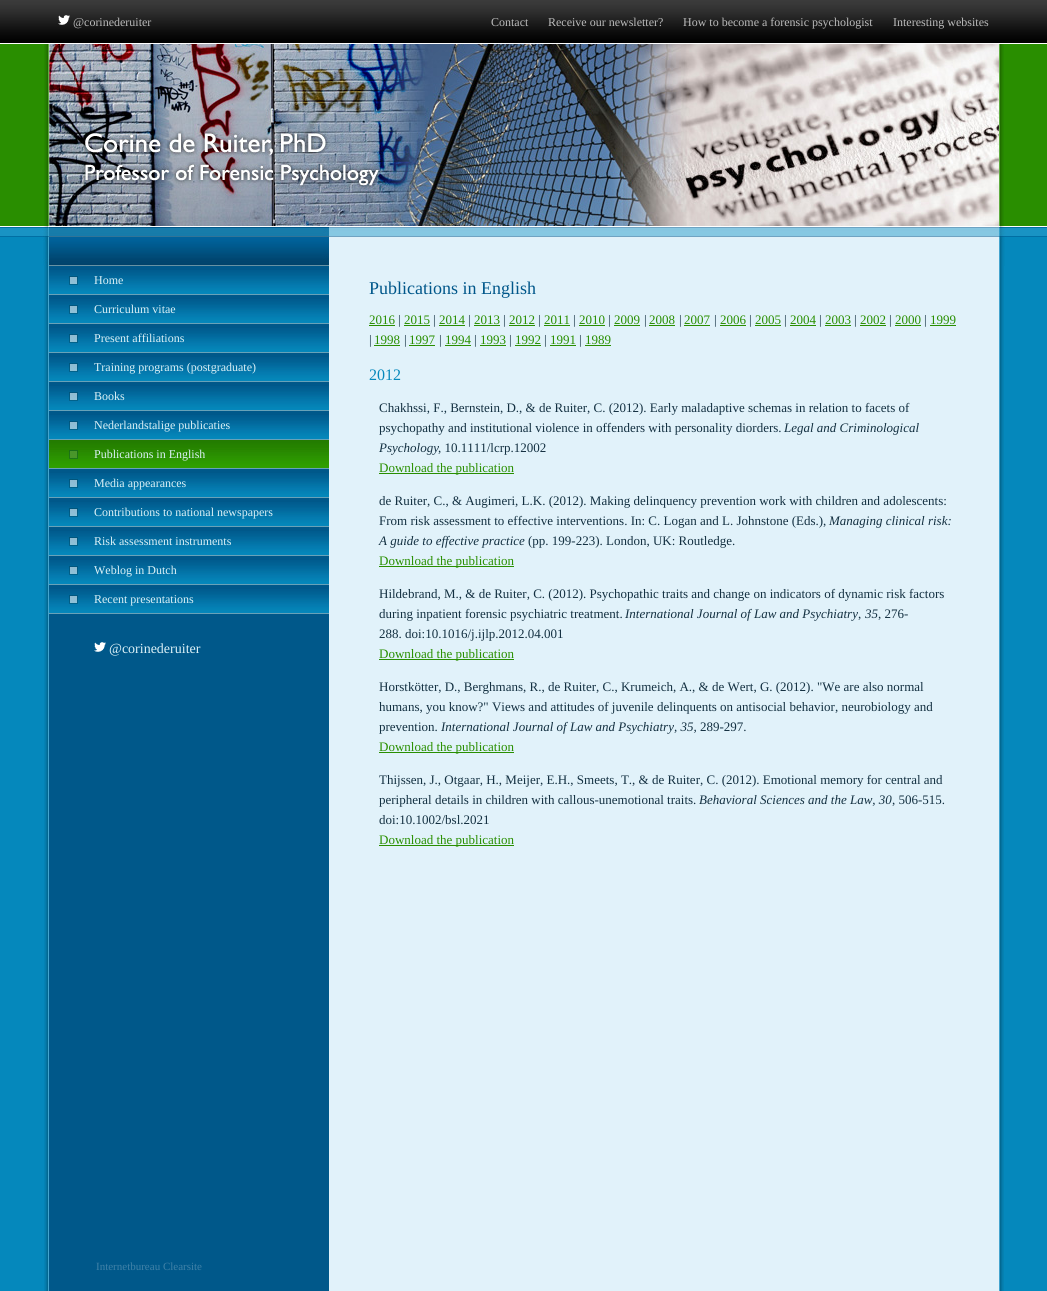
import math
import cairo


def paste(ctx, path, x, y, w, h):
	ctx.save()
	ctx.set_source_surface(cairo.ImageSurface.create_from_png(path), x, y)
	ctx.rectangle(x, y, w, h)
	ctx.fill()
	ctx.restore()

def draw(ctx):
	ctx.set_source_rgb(0.02, 0.533, 0.737)
	ctx.paint()
	paste(ctx, 'media/1.png', 0, 0, 1047, 237)
	paste(ctx, 'media/2.png', 44, 266, 960, 1025)
	paste(ctx, 'media/3.png', 42, 0, 964, 44)
	paste(ctx, 'media/4.png', 58, 15, 12, 10)
	ctx.select_font_face('Liberation Serif')
	ctx.set_font_size(12)
	ctx.set_source_rgb(0.733, 0.733, 0.733)
	for x, y, s in [
		(73, 26, '@corinederuiter'),
		(491, 26, 'Contact'),
		(548, 26, 'Receive our newsletter?'),
		(683, 26, 'How to become a forensic psychologist'),
		(893, 26, 'Interesting websites'),
	]:
		ctx.move_to(x, y)
		ctx.show_text(s)
	paste(ctx, 'media/5.png', 44, 44, 960, 182)
	paste(ctx, 'media/6.png', 49, 44, 950, 182)
	paste(ctx, 'media/7.png', 42, 226, 964, 40)
	paste(ctx, 'media/8.png', 49, 270, 280, 25)
	paste(ctx, 'media/9.png', 69, 276, 9, 9)
	ctx.set_source_rgb(0.863, 0.945, 0.965)
	ctx.move_to(94, 284)
	ctx.show_text('Home')
	paste(ctx, 'media/8.png', 49, 299, 280, 25)
	paste(ctx, 'media/9.png', 69, 305, 9, 9)
	ctx.move_to(94, 313)
	ctx.show_text('Curriculum vitae')
	paste(ctx, 'media/8.png', 49, 328, 280, 25)
	paste(ctx, 'media/9.png', 69, 334, 9, 9)
	ctx.move_to(94, 342)
	ctx.show_text('Present affiliations')
	paste(ctx, 'media/8.png', 49, 357, 280, 25)
	paste(ctx, 'media/9.png', 69, 363, 9, 9)
	ctx.move_to(94, 371)
	ctx.show_text('Training programs (postgraduate)')
	paste(ctx, 'media/8.png', 49, 386, 280, 25)
	paste(ctx, 'media/9.png', 69, 392, 9, 9)
	ctx.move_to(94, 400)
	ctx.show_text('Books')
	paste(ctx, 'media/8.png', 49, 415, 280, 25)
	paste(ctx, 'media/9.png', 69, 421, 9, 9)
	ctx.move_to(94, 429)
	ctx.show_text('Nederlandstalige publicaties')
	paste(ctx, 'media/10.png', 49, 440, 280, 29)
	paste(ctx, 'media/11.png', 69, 450, 9, 9)
	ctx.move_to(94, 458)
	ctx.show_text('Publications in English')
	paste(ctx, 'media/8.png', 49, 473, 280, 25)
	paste(ctx, 'media/9.png', 69, 479, 9, 9)
	ctx.move_to(94, 487)
	ctx.show_text('Media appearances')
	paste(ctx, 'media/8.png', 49, 502, 280, 25)
	paste(ctx, 'media/9.png', 69, 508, 9, 9)
	ctx.move_to(94, 516)
	ctx.show_text('Contributions to national newspapers')
	paste(ctx, 'media/8.png', 49, 531, 280, 25)
	paste(ctx, 'media/9.png', 69, 537, 9, 9)
	ctx.move_to(94, 545)
	ctx.show_text('Risk assessment instruments')
	paste(ctx, 'media/8.png', 49, 560, 280, 25)
	paste(ctx, 'media/9.png', 69, 566, 9, 9)
	ctx.move_to(94, 574)
	ctx.show_text('Weblog in Dutch')
	paste(ctx, 'media/8.png', 49, 589, 280, 25)
	paste(ctx, 'media/9.png', 69, 595, 9, 9)
	ctx.move_to(94, 603)
	ctx.show_text('Recent presentations')
	paste(ctx, 'media/12.png', 94, 642, 12, 10)
	ctx.set_font_size(14)
	ctx.move_to(109, 653)
	ctx.show_text('@corinederuiter')
	ctx.set_font_size(18)
	ctx.set_source_rgb(0, 0.341, 0.541)
	ctx.move_to(369, 294)
	ctx.show_text('Publications in English')
	ctx.set_font_size(13)
	ctx.set_source_rgb(0.161, 0.561, 0)
	ctx.move_to(369, 324)
	ctx.show_text('2016')
	ctx.rectangle(369, 325, 26, 1)
	ctx.fill()
	ctx.set_source_rgb(0.075, 0.188, 0.255)
	ctx.move_to(398, 324)
	ctx.show_text('|')
	ctx.set_source_rgb(0.161, 0.561, 0)
	ctx.move_to(404, 324)
	ctx.show_text('2015')
	ctx.rectangle(404, 325, 26, 1)
	ctx.fill()
	ctx.set_source_rgb(0.075, 0.188, 0.255)
	ctx.move_to(433, 324)
	ctx.show_text('|')
	ctx.set_source_rgb(0.161, 0.561, 0)
	ctx.move_to(439, 324)
	ctx.show_text('2014')
	ctx.rectangle(439, 325, 26, 1)
	ctx.fill()
	ctx.set_source_rgb(0.075, 0.188, 0.255)
	ctx.move_to(468, 324)
	ctx.show_text('|')
	ctx.set_source_rgb(0.161, 0.561, 0)
	ctx.move_to(474, 324)
	ctx.show_text('2013')
	ctx.rectangle(474, 325, 26, 1)
	ctx.fill()
	ctx.set_source_rgb(0.075, 0.188, 0.255)
	ctx.move_to(503, 324)
	ctx.show_text('|')
	ctx.set_source_rgb(0.161, 0.561, 0)
	ctx.move_to(509, 324)
	ctx.show_text('2012')
	ctx.rectangle(509, 325, 26, 1)
	ctx.fill()
	ctx.set_source_rgb(0.075, 0.188, 0.255)
	ctx.move_to(538, 324)
	ctx.show_text('|')
	ctx.set_source_rgb(0.161, 0.561, 0)
	ctx.move_to(544, 324)
	ctx.show_text('2011')
	ctx.rectangle(544, 325, 26, 1)
	ctx.fill()
	ctx.set_source_rgb(0.075, 0.188, 0.255)
	ctx.move_to(573, 324)
	ctx.show_text('|')
	ctx.set_source_rgb(0.161, 0.561, 0)
	ctx.move_to(579, 324)
	ctx.show_text('2010')
	ctx.rectangle(579, 325, 26, 1)
	ctx.fill()
	ctx.set_source_rgb(0.075, 0.188, 0.255)
	ctx.move_to(608, 324)
	ctx.show_text('|')
	ctx.set_source_rgb(0.161, 0.561, 0)
	ctx.move_to(614, 324)
	ctx.show_text('2009')
	ctx.rectangle(614, 325, 26, 1)
	ctx.fill()
	ctx.set_source_rgb(0.075, 0.188, 0.255)
	ctx.move_to(644, 324)
	ctx.show_text('|')
	ctx.set_source_rgb(0.161, 0.561, 0)
	ctx.move_to(649, 324)
	ctx.show_text('2008')
	ctx.rectangle(649, 325, 26, 1)
	ctx.fill()
	ctx.set_source_rgb(0.075, 0.188, 0.255)
	ctx.move_to(679, 324)
	ctx.show_text('|')
	ctx.set_source_rgb(0.161, 0.561, 0)
	ctx.move_to(684, 324)
	ctx.show_text('2007')
	ctx.rectangle(684, 325, 26, 1)
	ctx.fill()
	ctx.set_source_rgb(0.075, 0.188, 0.255)
	ctx.move_to(714, 324)
	ctx.show_text('|')
	ctx.set_source_rgb(0.161, 0.561, 0)
	ctx.move_to(720, 324)
	ctx.show_text('2006')
	ctx.rectangle(720, 325, 26, 1)
	ctx.fill()
	ctx.set_source_rgb(0.075, 0.188, 0.255)
	ctx.move_to(749, 324)
	ctx.show_text('|')
	ctx.set_source_rgb(0.161, 0.561, 0)
	ctx.move_to(755, 324)
	ctx.show_text('2005')
	ctx.rectangle(755, 325, 26, 1)
	ctx.fill()
	ctx.set_source_rgb(0.075, 0.188, 0.255)
	ctx.move_to(784, 324)
	ctx.show_text('|')
	ctx.set_source_rgb(0.161, 0.561, 0)
	ctx.move_to(790, 324)
	ctx.show_text('2004')
	ctx.rectangle(790, 325, 26, 1)
	ctx.fill()
	ctx.set_source_rgb(0.075, 0.188, 0.255)
	ctx.move_to(819, 324)
	ctx.show_text('|')
	ctx.set_source_rgb(0.161, 0.561, 0)
	ctx.move_to(825, 324)
	ctx.show_text('2003')
	ctx.rectangle(825, 325, 26, 1)
	ctx.fill()
	ctx.set_source_rgb(0.075, 0.188, 0.255)
	ctx.move_to(854, 324)
	ctx.show_text('|')
	ctx.set_source_rgb(0.161, 0.561, 0)
	ctx.move_to(860, 324)
	ctx.show_text('2002')
	ctx.rectangle(860, 325, 26, 1)
	ctx.fill()
	ctx.set_source_rgb(0.075, 0.188, 0.255)
	ctx.move_to(889, 324)
	ctx.show_text('|')
	ctx.set_source_rgb(0.161, 0.561, 0)
	ctx.move_to(895, 324)
	ctx.show_text('2000')
	ctx.rectangle(895, 325, 26, 1)
	ctx.fill()
	ctx.set_source_rgb(0.075, 0.188, 0.255)
	ctx.move_to(924, 324)
	ctx.show_text('|')
	ctx.set_source_rgb(0.161, 0.561, 0)
	ctx.move_to(930, 324)
	ctx.show_text('1999')
	ctx.rectangle(930, 325, 26, 1)
	ctx.fill()
	ctx.set_source_rgb(0.075, 0.188, 0.255)
	ctx.move_to(369, 344)
	ctx.show_text('|')
	ctx.set_source_rgb(0.161, 0.561, 0)
	ctx.move_to(374, 344)
	ctx.show_text('1998')
	ctx.rectangle(374, 345, 26, 1)
	ctx.fill()
	ctx.set_source_rgb(0.075, 0.188, 0.255)
	ctx.move_to(404, 344)
	ctx.show_text('|')
	ctx.set_source_rgb(0.161, 0.561, 0)
	ctx.move_to(409, 344)
	ctx.show_text('1997')
	ctx.rectangle(409, 345, 26, 1)
	ctx.fill()
	ctx.set_source_rgb(0.075, 0.188, 0.255)
	ctx.move_to(439, 344)
	ctx.show_text('|')
	ctx.set_source_rgb(0.161, 0.561, 0)
	ctx.move_to(445, 344)
	ctx.show_text('1994')
	ctx.rectangle(445, 345, 26, 1)
	ctx.fill()
	ctx.set_source_rgb(0.075, 0.188, 0.255)
	ctx.move_to(474, 344)
	ctx.show_text('|')
	ctx.set_source_rgb(0.161, 0.561, 0)
	ctx.move_to(480, 344)
	ctx.show_text('1993')
	ctx.rectangle(480, 345, 26, 1)
	ctx.fill()
	ctx.set_source_rgb(0.075, 0.188, 0.255)
	ctx.move_to(509, 344)
	ctx.show_text('|')
	ctx.set_source_rgb(0.161, 0.561, 0)
	ctx.move_to(515, 344)
	ctx.show_text('1992')
	ctx.rectangle(515, 345, 26, 1)
	ctx.fill()
	ctx.set_source_rgb(0.075, 0.188, 0.255)
	ctx.move_to(544, 344)
	ctx.show_text('|')
	ctx.set_source_rgb(0.161, 0.561, 0)
	ctx.move_to(550, 344)
	ctx.show_text('1991')
	ctx.rectangle(550, 345, 26, 1)
	ctx.fill()
	ctx.set_source_rgb(0.075, 0.188, 0.255)
	ctx.move_to(579, 344)
	ctx.show_text('|')
	ctx.set_source_rgb(0.161, 0.561, 0)
	ctx.move_to(585, 344)
	ctx.show_text('1989')
	ctx.rectangle(585, 345, 26, 1)
	ctx.fill()
	ctx.set_font_size(16)
	ctx.set_source_rgb(0.02, 0.533, 0.737)
	ctx.move_to(369, 380)
	ctx.show_text('2012')
	ctx.set_font_size(13)
	ctx.set_source_rgb(0.075, 0.188, 0.255)
	ctx.move_to(379, 412)
	ctx.show_text('Chakhssi, F., Bernstein, D., & de Ruiter, C. (2012). Early maladaptive schemas in relation to facets of')
	ctx.move_to(379, 432)
	ctx.show_text('psychopathy and institutional violence in offenders with personality diorders.')
	ctx.select_font_face('Liberation Serif', cairo.FONT_SLANT_ITALIC)
	ctx.move_to(784, 432)
	ctx.show_text('Legal and Criminological')
	ctx.move_to(379, 452)
	ctx.show_text('Psychology')
	ctx.select_font_face('Liberation Serif')
	ctx.move_to(438, 452)
	ctx.show_text(', 10.1111/lcrp.12002')
	ctx.set_source_rgb(0.161, 0.561, 0)
	ctx.rectangle(379, 473, 135, 1)
	ctx.fill()
	ctx.move_to(379, 472)
	ctx.show_text('Download the publication')
	ctx.set_source_rgb(0.075, 0.188, 0.255)
	ctx.move_to(379, 505)
	ctx.show_text('de Ruiter, C., & Augimeri, L.K. (2012). Making delinquency prevention work with children and adolescents:')
	ctx.move_to(379, 525)
	ctx.show_text('From risk assessment to effective interventions. In: C. Logan and L. Johnstone (Eds.),')
	ctx.select_font_face('Liberation Serif', cairo.FONT_SLANT_ITALIC)
	ctx.move_to(829, 525)
	ctx.show_text('Managing clinical risk:')
	ctx.move_to(379, 545)
	ctx.show_text('A guide to effective practice')
	ctx.select_font_face('Liberation Serif')
	ctx.move_to(528, 545)
	ctx.show_text('(pp. 199-223). London, UK: Routledge.')
	ctx.set_source_rgb(0.161, 0.561, 0)
	ctx.rectangle(379, 566, 135, 1)
	ctx.fill()
	ctx.move_to(379, 565)
	ctx.show_text('Download the publication')
	ctx.set_source_rgb(0.075, 0.188, 0.255)
	ctx.move_to(379, 598)
	ctx.show_text('Hildebrand, M., & de Ruiter, C. (2012). Psychopathic traits and change on indicators of dynamic risk factors')
	ctx.move_to(379, 618)
	ctx.show_text('during inpatient forensic psychiatric treatment.')
	ctx.select_font_face('Liberation Serif', cairo.FONT_SLANT_ITALIC)
	ctx.move_to(625, 618)
	ctx.show_text('International Journal of Law and Psychiatry')
	ctx.select_font_face('Liberation Serif')
	ctx.move_to(858, 618)
	ctx.show_text(',')
	ctx.select_font_face('Liberation Serif', cairo.FONT_SLANT_ITALIC)
	ctx.move_to(865, 618)
	ctx.show_text('35')
	ctx.select_font_face('Liberation Serif')
	ctx.move_to(878, 618)
	ctx.show_text(', 276-')
	ctx.move_to(379, 638)
	ctx.show_text('288. doi:10.1016/j.ijlp.2012.04.001')
	ctx.set_source_rgb(0.161, 0.561, 0)
	ctx.rectangle(379, 659, 135, 1)
	ctx.fill()
	ctx.move_to(379, 658)
	ctx.show_text('Download the publication')
	ctx.set_source_rgb(0.075, 0.188, 0.255)
	for x, y, s in [
		(379, 691, 'Horstkötter, D., Berghmans, R., de Ruiter, C., Krumeich, A., & de Wert, G. (2012). "We are also normal'),
		(379, 711, 'humans, you know?" Views and attitudes of juvenile delinquents on antisocial behavior, neurobiology and'),
		(379, 731, 'prevention.'),
	]:
		ctx.move_to(x, y)
		ctx.show_text(s)
	ctx.select_font_face('Liberation Serif', cairo.FONT_SLANT_ITALIC)
	ctx.move_to(441, 731)
	ctx.show_text('International Journal of Law and Psychiatry, 35,')
	ctx.select_font_face('Liberation Serif')
	ctx.move_to(700, 731)
	ctx.show_text('289-297.')
	ctx.set_source_rgb(0.161, 0.561, 0)
	ctx.rectangle(379, 752, 135, 1)
	ctx.fill()
	ctx.move_to(379, 751)
	ctx.show_text('Download the publication')
	ctx.set_source_rgb(0.075, 0.188, 0.255)
	ctx.move_to(379, 784)
	ctx.show_text('Thijssen, J., Otgaar, H., Meijer, E.H., Smeets, T., & de Ruiter, C. (2012). Emotional memory for central and')
	ctx.move_to(379, 804)
	ctx.show_text('peripheral details in children with callous-unemotional traits.')
	ctx.select_font_face('Liberation Serif', cairo.FONT_SLANT_ITALIC)
	ctx.move_to(699, 804)
	ctx.show_text('Behavioral Sciences and the Law, 30')
	ctx.select_font_face('Liberation Serif')
	ctx.move_to(892, 804)
	ctx.show_text(', 506-515.')
	ctx.move_to(379, 824)
	ctx.show_text('doi:10.1002/bsl.2021')
	ctx.set_source_rgb(0.161, 0.561, 0)
	ctx.rectangle(379, 845, 135, 1)
	ctx.fill()
	ctx.move_to(379, 844)
	ctx.show_text('Download the publication')
	ctx.set_font_size(11)
	ctx.set_source_rgb(0.251, 0.506, 0.655)
	ctx.move_to(96, 1270)
	ctx.show_text('Internetbureau Clearsite')


surface = cairo.ImageSurface(cairo.FORMAT_RGB24, 1047, 1291)
ctx = cairo.Context(surface)
options = cairo.FontOptions()
options.set_hint_metrics(cairo.HINT_METRICS_OFF)
options.set_hint_style(cairo.HINT_STYLE_NONE)
ctx.set_font_options(options)
ctx.set_miter_limit(4)
draw(ctx)
surface.write_to_png('image.png')
